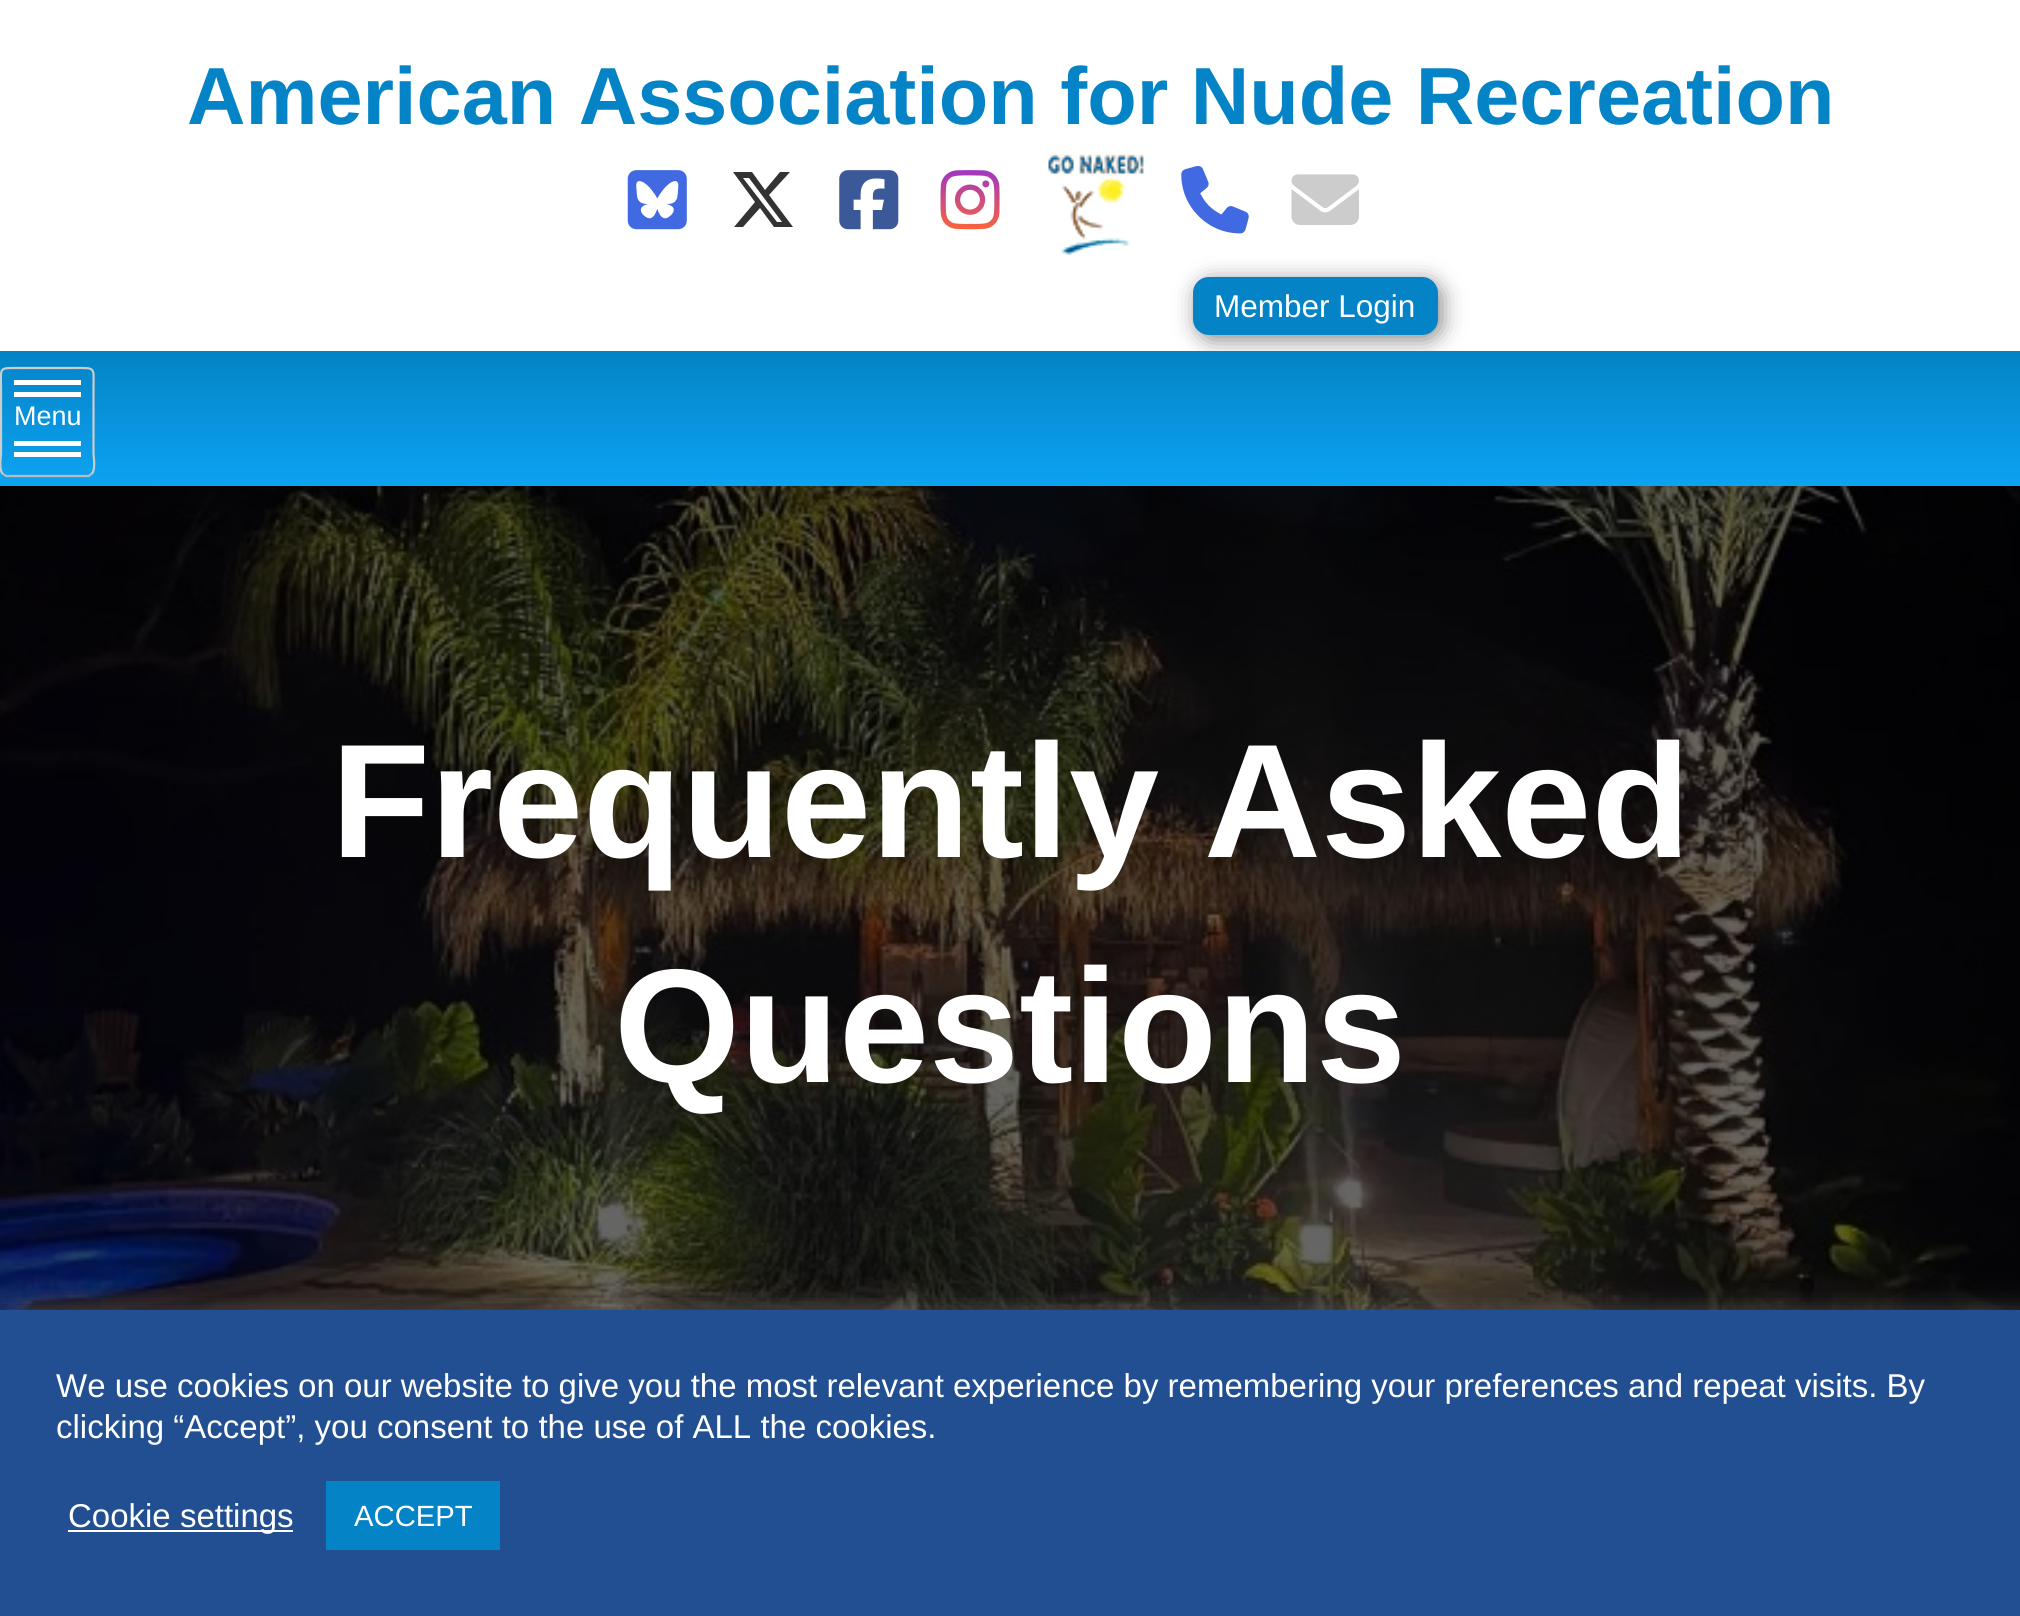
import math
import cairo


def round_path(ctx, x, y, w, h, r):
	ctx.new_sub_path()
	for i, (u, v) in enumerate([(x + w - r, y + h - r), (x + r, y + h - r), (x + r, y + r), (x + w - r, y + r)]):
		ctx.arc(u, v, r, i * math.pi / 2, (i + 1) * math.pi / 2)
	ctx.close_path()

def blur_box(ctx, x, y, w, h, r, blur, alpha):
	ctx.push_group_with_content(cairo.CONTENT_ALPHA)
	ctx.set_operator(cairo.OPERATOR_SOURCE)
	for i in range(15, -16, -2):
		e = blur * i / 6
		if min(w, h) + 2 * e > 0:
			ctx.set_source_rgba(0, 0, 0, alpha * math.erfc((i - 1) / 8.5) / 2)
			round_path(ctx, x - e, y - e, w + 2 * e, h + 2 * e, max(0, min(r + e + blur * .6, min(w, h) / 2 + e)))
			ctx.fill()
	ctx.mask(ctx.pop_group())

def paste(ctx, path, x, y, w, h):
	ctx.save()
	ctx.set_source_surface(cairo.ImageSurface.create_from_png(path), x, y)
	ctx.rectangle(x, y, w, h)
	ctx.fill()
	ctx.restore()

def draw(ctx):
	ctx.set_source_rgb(1, 1, 1)
	ctx.paint()
	ctx.select_font_face('Liberation Sans', cairo.FONT_SLANT_NORMAL, cairo.FONT_WEIGHT_BOLD)
	ctx.set_font_size(81)
	ctx.set_source_rgb(0.016, 0.514, 0.776)
	ctx.move_to(187, 124)
	ctx.show_text('American Association for Nude Recreation')
	paste(ctx, 'media/1.png', 627, 170, 60, 60)
	ctx.set_source_rgb(0.2, 0.2, 0.2)
	ctx.new_path()
	ctx.move_to(780, 172)
	ctx.line_to(790, 172)
	ctx.line_to(780, 172)
	ctx.line_to(790, 172)
	ctx.line_to(769, 195)
	ctx.line_to(793, 227)
	ctx.line_to(774, 227)
	ctx.line_to(760, 208)
	ctx.line_to(743, 227)
	ctx.line_to(734, 227)
	ctx.line_to(755, 202)
	ctx.line_to(733, 172)
	ctx.line_to(752, 172)
	ctx.line_to(765, 190)
	ctx.close_path()
	ctx.move_to(777, 222)
	ctx.line_to(782, 222)
	ctx.line_to(777, 222)
	ctx.line_to(782, 222)
	ctx.line_to(749, 178)
	ctx.line_to(743, 178)
	ctx.close_path()
	ctx.fill()
	paste(ctx, 'media/2.png', 839, 170, 60, 60)
	paste(ctx, 'media/3.png', 940, 170, 60, 60)
	paste(ctx, 'media/4.png', 1048, 154, 96, 101)
	paste(ctx, 'media/5.png', 1181, 166, 68, 68)
	paste(ctx, 'media/6.png', 1291, 174, 68, 51)
	ctx.set_source_rgb(0.533, 0.533, 0.533)
	blur_box(ctx, 1197, 281, 245, 59, 16, 11, 1)
	ctx.set_source_rgb(0.016, 0.514, 0.776)
	round_path(ctx, 1193, 277, 245, 58, 16)
	ctx.fill()
	ctx.select_font_face('Liberation Sans')
	ctx.set_font_size(31.5)
	ctx.set_source_rgb(1, 1, 1)
	ctx.move_to(1214, 317)
	ctx.show_text('Member Login')
	gradient = cairo.LinearGradient(1010, 351, 1010, 486)
	gradient.add_color_stop_rgba(0, 0.016, 0.514, 0.776, 1)
	gradient.add_color_stop_rgba(1, 0.047, 0.639, 0.949, 1)
	ctx.set_source(gradient)
	ctx.rectangle(0, 351, 2020, 135)
	ctx.fill()
	ctx.new_path()
	ctx.move_to(91.5, 474)
	ctx.line_to(88.5, 476)
	ctx.line_to(6, 476)
	ctx.line_to(3, 474)
	ctx.set_source_rgb(0.733, 0.733, 0.733)
	ctx.set_line_width(2.2)
	ctx.stroke()
	ctx.new_path()
	ctx.move_to(3, 474)
	ctx.curve_to(-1.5, 470, 1, 456, 1, 454)
	ctx.line_to(1, 389.5)
	ctx.curve_to(1, 366.5, -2, 368, 20, 368)
	ctx.line_to(74, 368)
	ctx.curve_to(96.5, 368, 93.5, 366.5, 93.5, 389.5)
	ctx.line_to(93.5, 454)
	ctx.curve_to(93.5, 456, 96, 470, 91.5, 474)
	ctx.set_source_rgb(0.8, 0.8, 0.8)
	ctx.stroke()
	ctx.set_source_rgb(1, 1, 1)
	ctx.rectangle(14, 380, 67, 5)
	ctx.fill()
	ctx.rectangle(14, 392, 67, 5)
	ctx.fill()
	ctx.set_font_size(27)
	ctx.move_to(14, 425)
	ctx.show_text('Menu')
	ctx.rectangle(14, 441, 67, 5)
	ctx.fill()
	ctx.rectangle(14, 452, 67, 5)
	ctx.fill()
	paste(ctx, 'media/7.png', 0, 486, 2020, 824)
	ctx.select_font_face('Liberation Sans', cairo.FONT_SLANT_NORMAL, cairo.FONT_WEIGHT_BOLD)
	ctx.set_font_size(162)
	ctx.move_to(331, 857)
	ctx.show_text('Frequently Asked')
	ctx.move_to(614, 1082)
	ctx.show_text('Questions')
	ctx.set_source_rgb(0.675, 0.671, 0.671)
	blur_box(ctx, 0, 1307, 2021, 309, 0, 11, 0.3)
	ctx.set_source_rgb(0.133, 0.31, 0.569)
	ctx.rectangle(0, 1310, 2020, 306)
	ctx.fill()
	ctx.select_font_face('Liberation Sans')
	ctx.set_font_size(33)
	ctx.set_source_rgb(1, 1, 1)
	ctx.move_to(56, 1397)
	ctx.show_text('We use cookies on our website to give you the most relevant experience by remembering your preferences and repeat visits. By')
	ctx.move_to(56, 1438)
	ctx.show_text('clicking “Accept”, you consent to the use of ALL the cookies.')
	ctx.rectangle(68, 1530, 225, 2)
	ctx.fill()
	ctx.move_to(68, 1527)
	ctx.show_text('Cookie settings')
	ctx.set_source_rgb(0.016, 0.514, 0.776)
	ctx.rectangle(326, 1481, 174, 69)
	ctx.fill()
	ctx.set_font_size(29.25)
	ctx.set_source_rgb(1, 1, 1)
	ctx.move_to(354, 1526)
	ctx.show_text('ACCEPT')


surface = cairo.ImageSurface(cairo.FORMAT_RGB24, 2020, 1616)
ctx = cairo.Context(surface)
options = cairo.FontOptions()
options.set_hint_metrics(cairo.HINT_METRICS_OFF)
options.set_hint_style(cairo.HINT_STYLE_NONE)
ctx.set_font_options(options)
ctx.set_miter_limit(4)
draw(ctx)
surface.write_to_png('image.png')
